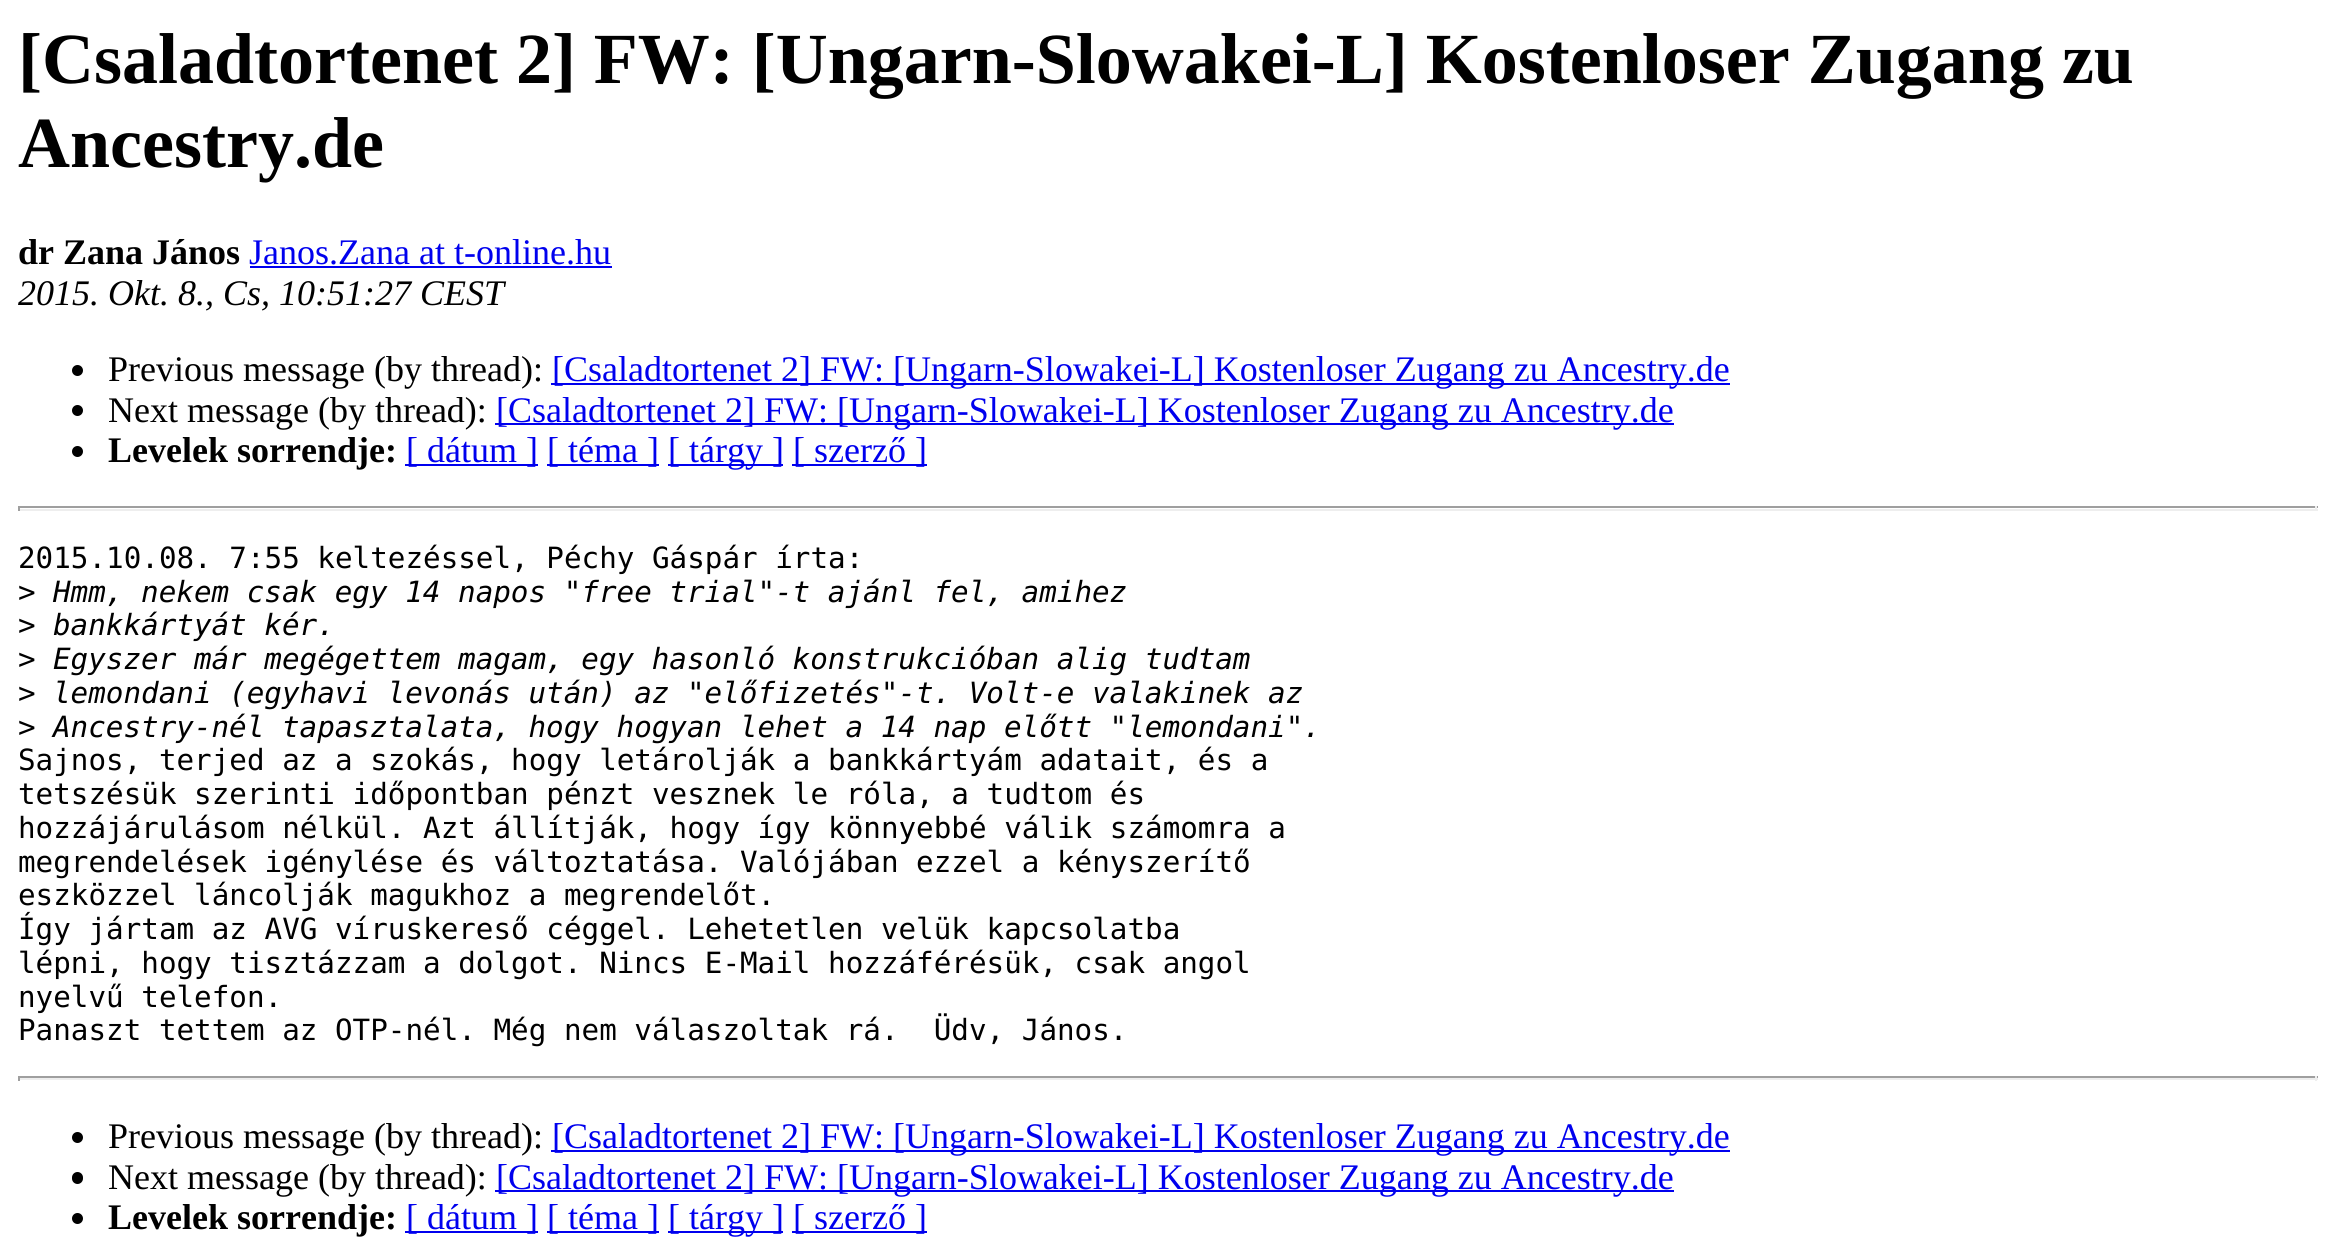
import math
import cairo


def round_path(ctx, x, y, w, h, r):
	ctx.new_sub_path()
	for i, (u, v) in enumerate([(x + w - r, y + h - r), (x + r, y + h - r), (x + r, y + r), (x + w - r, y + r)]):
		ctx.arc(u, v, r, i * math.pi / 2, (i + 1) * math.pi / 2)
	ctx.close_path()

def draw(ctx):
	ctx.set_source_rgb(1, 1, 1)
	ctx.paint()
	ctx.select_font_face('Liberation Serif', cairo.FONT_SLANT_NORMAL, cairo.FONT_WEIGHT_BOLD)
	ctx.set_font_size(72)
	ctx.set_source_rgb(0, 0, 0)
	ctx.move_to(18, 83)
	ctx.show_text('[Csaladtortenet 2] FW: [Ungarn-Slowakei-L] Kostenloser Zugang zu')
	ctx.move_to(18, 167)
	ctx.show_text('Ancestry.de')
	ctx.set_font_size(36)
	ctx.move_to(18, 264)
	ctx.show_text('dr Zana János')
	ctx.select_font_face('Liberation Serif')
	ctx.set_source_rgb(0, 0, 0.933)
	ctx.move_to(249, 264)
	ctx.show_text('Janos.Zana at t-online.hu')
	ctx.rectangle(250, 266, 362, 2)
	ctx.fill()
	ctx.select_font_face('Liberation Serif', cairo.FONT_SLANT_ITALIC)
	ctx.set_source_rgb(0, 0, 0)
	ctx.move_to(18, 305)
	ctx.show_text('2015. Okt. 8., Cs, 10:51:27 CEST')
	ctx.new_path()
	ctx.arc(77.5, 370.5, 5.5, 0, 2 * math.pi)
	ctx.fill()
	ctx.select_font_face('Liberation Serif')
	ctx.move_to(108, 381)
	ctx.show_text('Previous message (by thread):')
	ctx.set_source_rgb(0, 0, 0.933)
	ctx.rectangle(551, 383, 1179, 2)
	ctx.fill()
	ctx.move_to(552, 381)
	ctx.show_text('[Csaladtortenet 2] FW: [Ungarn-Slowakei-L] Kostenloser Zugang zu Ancestry.de')
	ctx.set_source_rgb(0, 0, 0)
	ctx.new_path()
	ctx.arc(77.5, 410.5, 5.5, 0, 2 * math.pi)
	ctx.fill()
	ctx.move_to(108, 422)
	ctx.show_text('Next message (by thread):')
	ctx.set_source_rgb(0, 0, 0.933)
	ctx.rectangle(495, 423, 1179, 2)
	ctx.fill()
	ctx.move_to(496, 422)
	ctx.show_text('[Csaladtortenet 2] FW: [Ungarn-Slowakei-L] Kostenloser Zugang zu Ancestry.de')
	ctx.set_source_rgb(0, 0, 0)
	ctx.new_path()
	ctx.arc(77.5, 451.5, 5.5, 0, 2 * math.pi)
	ctx.fill()
	ctx.select_font_face('Liberation Serif', cairo.FONT_SLANT_NORMAL, cairo.FONT_WEIGHT_BOLD)
	ctx.move_to(108, 462)
	ctx.show_text('Levelek sorrendje:')
	ctx.set_source_rgb(0, 0, 0.933)
	ctx.rectangle(405, 464, 133, 2)
	ctx.fill()
	ctx.select_font_face('Liberation Serif')
	ctx.move_to(406, 462)
	ctx.show_text('[ dátum ]')
	ctx.rectangle(547, 464, 112, 2)
	ctx.fill()
	ctx.move_to(547, 462)
	ctx.show_text('[ téma ]')
	ctx.rectangle(668, 464, 115, 2)
	ctx.fill()
	ctx.move_to(668, 462)
	ctx.show_text('[ tárgy ]')
	ctx.rectangle(792, 464, 135, 2)
	ctx.fill()
	ctx.move_to(793, 462)
	ctx.show_text('[ szerző ]')
	ctx.set_source_rgb(0.624, 0.624, 0.624)
	ctx.rectangle(18, 506, 2300, 2)
	ctx.fill()
	ctx.set_source_rgb(0.933, 0.933, 0.933)
	ctx.rectangle(2315, 506, 2, 5)
	ctx.rectangle(18, 509, 2300, 2)
	ctx.fill()
	ctx.set_source_rgb(0.624, 0.624, 0.624)
	ctx.rectangle(18, 506, 2, 5)
	ctx.fill()
	ctx.select_font_face('DejaVu Sans Mono')
	ctx.set_font_size(29.25)
	ctx.set_source_rgb(0, 0, 0)
	ctx.move_to(18, 568)
	ctx.show_text('2015.10.08. 7:55 keltezéssel, Péchy Gáspár írta:')
	ctx.move_to(18, 602)
	ctx.show_text('>')
	ctx.select_font_face('DejaVu Sans Mono', cairo.FONT_SLANT_ITALIC)
	ctx.move_to(53, 602)
	ctx.show_text('Hmm, nekem csak egy 14 napos "free trial"-t ajánl fel, amihez')
	ctx.select_font_face('DejaVu Sans Mono')
	ctx.move_to(18, 635)
	ctx.show_text('>')
	ctx.select_font_face('DejaVu Sans Mono', cairo.FONT_SLANT_ITALIC)
	ctx.move_to(53, 635)
	ctx.show_text('bankkártyát kér.')
	ctx.select_font_face('DejaVu Sans Mono')
	ctx.move_to(18, 669)
	ctx.show_text('>')
	ctx.select_font_face('DejaVu Sans Mono', cairo.FONT_SLANT_ITALIC)
	ctx.move_to(53, 669)
	ctx.show_text('Egyszer már megégettem magam, egy hasonló konstrukcióban alig tudtam')
	ctx.select_font_face('DejaVu Sans Mono')
	ctx.move_to(18, 703)
	ctx.show_text('>')
	ctx.select_font_face('DejaVu Sans Mono', cairo.FONT_SLANT_ITALIC)
	ctx.move_to(53, 703)
	ctx.show_text('lemondani (egyhavi levonás után) az "előfizetés"-t. Volt-e valakinek az')
	ctx.select_font_face('DejaVu Sans Mono')
	ctx.move_to(18, 737)
	ctx.show_text('>')
	ctx.select_font_face('DejaVu Sans Mono', cairo.FONT_SLANT_ITALIC)
	ctx.move_to(53, 737)
	ctx.show_text('Ancestry-nél tapasztalata, hogy hogyan lehet a 14 nap előtt "lemondani".')
	ctx.select_font_face('DejaVu Sans Mono')
	for x, y, s in [
		(18, 770, 'Sajnos, terjed az a szokás, hogy letárolják a bankkártyám adatait, és a'),
		(18, 804, 'tetszésük szerinti időpontban pénzt vesznek le róla, a tudtom és'),
		(18, 838, 'hozzájárulásom nélkül. Azt állítják, hogy így könnyebbé válik számomra a'),
		(18, 872, 'megrendelések igénylése és változtatása. Valójában ezzel a kényszerítő'),
		(18, 905, 'eszközzel láncolják magukhoz a megrendelőt.'),
		(18, 939, 'Így jártam az AVG víruskereső céggel. Lehetetlen velük kapcsolatba'),
		(18, 973, 'lépni, hogy tisztázzam a dolgot. Nincs E-Mail hozzáférésük, csak angol'),
		(18, 1007, 'nyelvű telefon.'),
		(18, 1040, 'Panaszt tettem az OTP-nél. Még nem válaszoltak rá.  Üdv, János.'),
	]:
		ctx.move_to(x, y)
		ctx.show_text(s)
	ctx.set_source_rgb(0.624, 0.624, 0.624)
	ctx.rectangle(18, 1076, 2300, 2)
	ctx.fill()
	ctx.set_source_rgb(0.933, 0.933, 0.933)
	ctx.rectangle(2315, 1076, 2, 5)
	ctx.rectangle(18, 1078, 2300, 2)
	ctx.fill()
	ctx.set_source_rgb(0.624, 0.624, 0.624)
	ctx.rectangle(18, 1076, 2, 5)
	ctx.fill()
	ctx.set_source_rgb(0, 0, 0)
	ctx.arc(77.5, 1137.5, 5.5, 0, 2 * math.pi)
	ctx.fill()
	ctx.select_font_face('Liberation Serif')
	ctx.set_font_size(36)
	ctx.move_to(108, 1148)
	ctx.show_text('Previous message (by thread):')
	ctx.set_source_rgb(0, 0, 0.933)
	ctx.rectangle(551, 1150, 1179, 2)
	ctx.fill()
	ctx.move_to(552, 1148)
	ctx.show_text('[Csaladtortenet 2] FW: [Ungarn-Slowakei-L] Kostenloser Zugang zu Ancestry.de')
	ctx.set_source_rgb(0, 0, 0)
	round_path(ctx, 72, 1172, 11, 12, 5.5)
	ctx.fill()
	ctx.move_to(108, 1189)
	ctx.show_text('Next message (by thread):')
	ctx.set_source_rgb(0, 0, 0.933)
	ctx.rectangle(495, 1190, 1179, 2)
	ctx.fill()
	ctx.move_to(496, 1189)
	ctx.show_text('[Csaladtortenet 2] FW: [Ungarn-Slowakei-L] Kostenloser Zugang zu Ancestry.de')
	ctx.set_source_rgb(0, 0, 0)
	ctx.new_path()
	ctx.arc(77.5, 1218.5, 5.5, 0, 2 * math.pi)
	ctx.fill()
	ctx.select_font_face('Liberation Serif', cairo.FONT_SLANT_NORMAL, cairo.FONT_WEIGHT_BOLD)
	ctx.move_to(108, 1229)
	ctx.show_text('Levelek sorrendje:')
	ctx.set_source_rgb(0, 0, 0.933)
	ctx.rectangle(405, 1231, 133, 2)
	ctx.fill()
	ctx.select_font_face('Liberation Serif')
	ctx.move_to(406, 1229)
	ctx.show_text('[ dátum ]')
	ctx.rectangle(547, 1231, 112, 2)
	ctx.fill()
	ctx.move_to(547, 1229)
	ctx.show_text('[ téma ]')
	ctx.rectangle(668, 1231, 115, 2)
	ctx.fill()
	ctx.move_to(668, 1229)
	ctx.show_text('[ tárgy ]')
	ctx.rectangle(792, 1231, 135, 2)
	ctx.fill()
	ctx.move_to(793, 1229)
	ctx.show_text('[ szerző ]')


surface = cairo.ImageSurface(cairo.FORMAT_RGB24, 2335, 1237)
ctx = cairo.Context(surface)
options = cairo.FontOptions()
options.set_hint_metrics(cairo.HINT_METRICS_OFF)
options.set_hint_style(cairo.HINT_STYLE_NONE)
ctx.set_font_options(options)
ctx.set_miter_limit(4)
draw(ctx)
surface.write_to_png('image.png')
